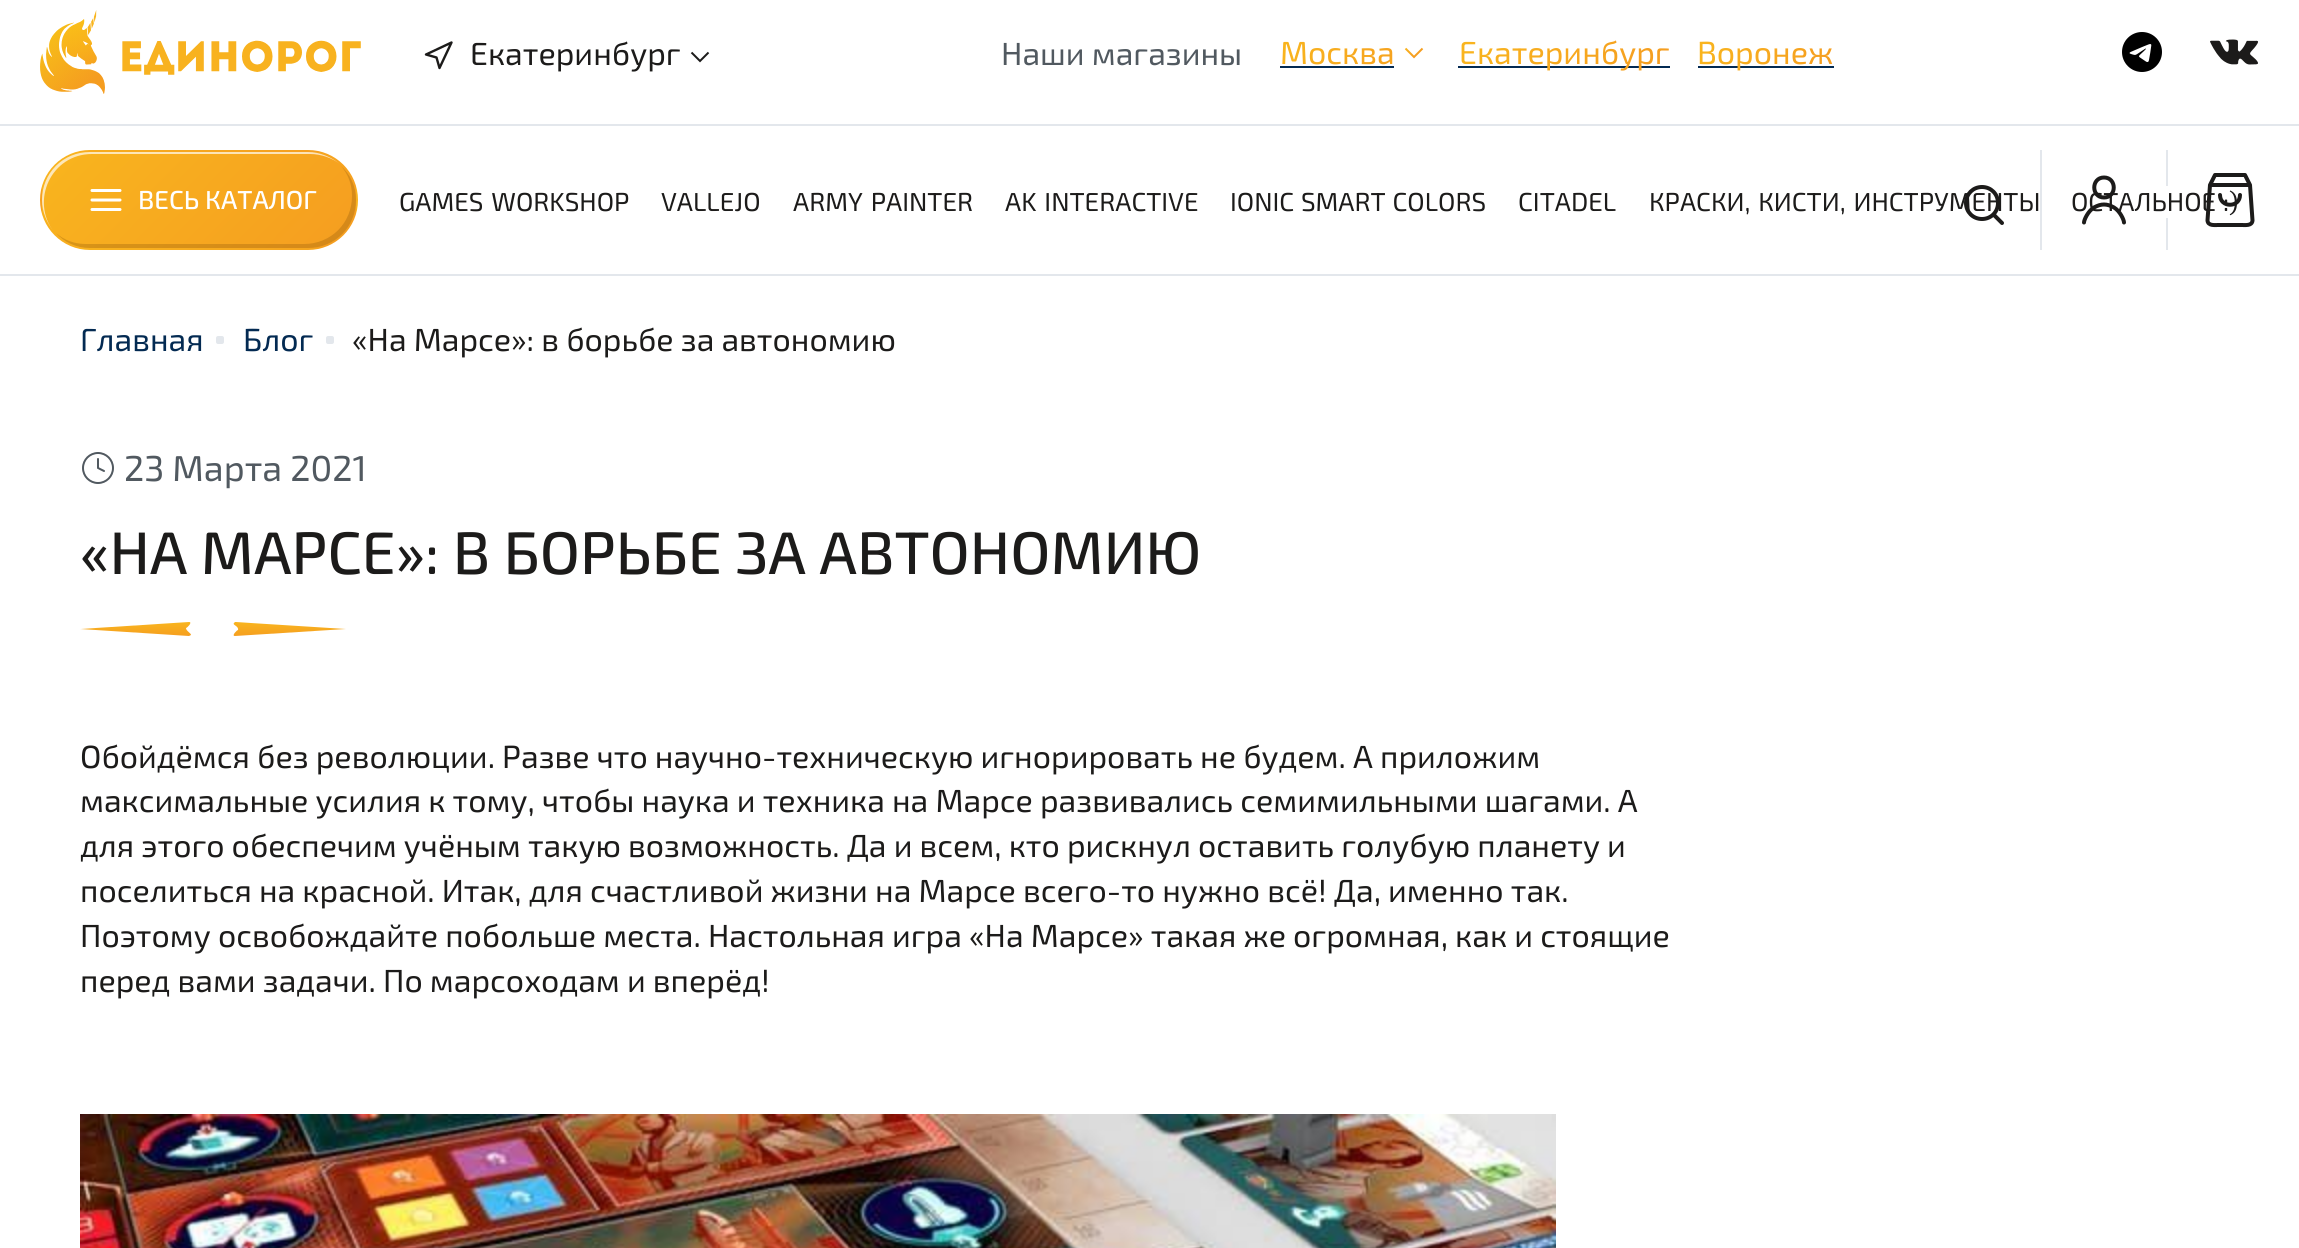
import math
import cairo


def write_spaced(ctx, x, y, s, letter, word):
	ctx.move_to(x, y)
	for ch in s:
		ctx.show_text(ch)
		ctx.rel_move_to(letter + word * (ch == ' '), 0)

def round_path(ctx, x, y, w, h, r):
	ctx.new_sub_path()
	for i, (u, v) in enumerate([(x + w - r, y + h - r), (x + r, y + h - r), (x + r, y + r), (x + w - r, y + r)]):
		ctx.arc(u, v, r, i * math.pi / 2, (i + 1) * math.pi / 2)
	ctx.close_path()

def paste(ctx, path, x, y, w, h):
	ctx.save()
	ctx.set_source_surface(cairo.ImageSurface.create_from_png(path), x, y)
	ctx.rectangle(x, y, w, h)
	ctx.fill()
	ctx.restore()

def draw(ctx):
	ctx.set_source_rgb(1, 1, 1)
	ctx.paint()
	ctx.set_source_rgb(0.89, 0.906, 0.922)
	ctx.rectangle(0, 124, 2299, 2)
	ctx.fill()
	paste(ctx, 'media/1.png', 40, 10, 321, 84)
	ctx.new_path()
	ctx.move_to(426, 54.5)
	ctx.line_to(451.5, 42.5)
	ctx.line_to(439.5, 68)
	ctx.line_to(436.5, 57.5)
	ctx.close_path()
	ctx.set_source_rgb(0.11, 0.106, 0.102)
	ctx.set_line_width(2.4)
	ctx.set_line_cap(cairo.LINE_CAP_ROUND)
	ctx.set_line_join(cairo.LINE_JOIN_ROUND)
	ctx.stroke()
	ctx.select_font_face('Exo 2')
	ctx.set_font_size(32)
	ctx.move_to(470, 65)
	ctx.show_text('Екатеринбург')
	ctx.new_path()
	ctx.move_to(708.5, 52.5)
	ctx.line_to(700, 61)
	ctx.line_to(691.5, 52.5)
	ctx.set_line_width(2)
	ctx.set_line_cap(cairo.LINE_CAP_BUTT)
	ctx.set_line_join(cairo.LINE_JOIN_MITER)
	ctx.stroke()
	ctx.set_source_rgb(0.318, 0.349, 0.376)
	ctx.move_to(1001, 65)
	ctx.show_text('Наши магазины')
	gradient = cairo.LinearGradient(1279, 46, 1432, 59)
	gradient.add_color_stop_rgba(0, 0.976, 0.71, 0.118, 1)
	gradient.add_color_stop_rgba(1, 0.961, 0.616, 0.125, 1)
	ctx.set_source(gradient)
	ctx.move_to(1280, 64)
	ctx.show_text('Москва')
	ctx.set_source_rgb(0.012, 0.165, 0.322)
	ctx.rectangle(1280, 66, 114, 2)
	ctx.fill()
	ctx.new_path()
	ctx.move_to(1422.5, 48.5)
	ctx.line_to(1414, 57)
	ctx.line_to(1405.5, 48.5)
	gradient = cairo.LinearGradient(1414, 40, 1422, 50)
	gradient.add_color_stop_rgba(0, 0.976, 0.71, 0.118, 1)
	gradient.add_color_stop_rgba(1, 0.961, 0.616, 0.125, 1)
	ctx.set_source(gradient)
	ctx.stroke()
	ctx.set_source_rgb(0.012, 0.165, 0.322)
	ctx.rectangle(1458, 66, 212, 2)
	ctx.fill()
	gradient = cairo.LinearGradient(1457, 43, 1671, 62)
	gradient.add_color_stop_rgba(0, 0.976, 0.71, 0.118, 1)
	gradient.add_color_stop_rgba(1, 0.961, 0.616, 0.125, 1)
	ctx.set_source(gradient)
	ctx.move_to(1459, 64)
	ctx.show_text('Екатеринбург')
	ctx.set_source_rgb(0.012, 0.165, 0.322)
	ctx.rectangle(1698, 66, 136, 2)
	ctx.fill()
	gradient = cairo.LinearGradient(1696, 47, 1835, 59)
	gradient.add_color_stop_rgba(0, 0.976, 0.71, 0.118, 1)
	gradient.add_color_stop_rgba(1, 0.961, 0.616, 0.125, 1)
	ctx.set_source(gradient)
	ctx.move_to(1697, 64)
	ctx.show_text('Воронеж')
	paste(ctx, 'media/2.png', 2122, 32, 40, 40)
	paste(ctx, 'media/3.png', 2210, 39, 49, 26)
	ctx.set_source_rgb(0.89, 0.906, 0.922)
	ctx.rectangle(0, 274, 2299, 2)
	ctx.fill()
	ctx.save()
	round_path(ctx, 40, 150, 318, 100, 50)
	ctx.clip()
	gradient = cairo.LinearGradient(96, 1.5, 302, 207)
	gradient.add_color_stop_rgba(0, 0.976, 0.71, 0.118, 1)
	gradient.add_color_stop_rgba(1, 0.961, 0.616, 0.125, 1)
	ctx.set_source(gradient)
	ctx.rectangle(76, 150, 246, 2)
	ctx.fill()
	gradient = cairo.LinearGradient(-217, 98, -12, 303)
	gradient.add_color_stop_rgba(0, 0.976, 0.71, 0.118, 1)
	gradient.add_color_stop_rgba(1, 0.961, 0.616, 0.125, 1)
	ctx.set_source(gradient)
	ctx.rectangle(40, 186, 2, 28)
	ctx.fill()
	gradient = cairo.LinearGradient(96, 98, 302, 303)
	gradient.add_color_stop_rgba(0, 0.976, 0.71, 0.118, 1)
	gradient.add_color_stop_rgba(1, 0.961, 0.616, 0.125, 1)
	ctx.set_source(gradient)
	ctx.rectangle(42, 152, 314, 96)
	ctx.fill()
	gradient = cairo.LinearGradient(411, 98, 616, 303)
	gradient.add_color_stop_rgba(0, 0.976, 0.71, 0.118, 1)
	gradient.add_color_stop_rgba(1, 0.961, 0.616, 0.125, 1)
	ctx.set_source(gradient)
	ctx.rectangle(356, 186, 2, 28)
	ctx.fill()
	gradient = cairo.LinearGradient(96, 194, 302, 399)
	gradient.add_color_stop_rgba(0, 0.976, 0.71, 0.118, 1)
	gradient.add_color_stop_rgba(1, 0.961, 0.616, 0.125, 1)
	ctx.set_source(gradient)
	ctx.rectangle(76, 248, 246, 2)
	ctx.fill()
	ctx.restore()
	ctx.set_source_rgba(0.529, 0.333, 0.039, 0.29)
	ctx.new_path()
	ctx.move_to(56, 233)
	ctx.curve_to(64, 242, 76, 248, 90, 248)
	ctx.line_to(308, 248)
	ctx.curve_to(335, 248, 356, 227, 356, 200)
	ctx.curve_to(356, 186, 350, 174, 341, 166)
	ctx.curve_to(348, 174, 352, 184, 352, 196)
	ctx.curve_to(352, 223, 331, 244, 304, 244)
	ctx.line_to(86, 244)
	ctx.curve_to(74, 244, 64, 240, 56, 233)
	ctx.close_path()
	ctx.fill()
	ctx.set_source_rgba(1, 1, 1, 0.68)
	ctx.new_path()
	ctx.move_to(92, 154)
	ctx.line_to(310, 154)
	ctx.curve_to(321, 154, 332, 158, 340, 164)
	ctx.curve_to(331, 157, 320, 152, 308, 152)
	ctx.line_to(90, 152)
	ctx.curve_to(63, 152, 42, 173, 42, 200)
	ctx.curve_to(42, 212, 47, 223, 54, 232)
	ctx.curve_to(30, 201, 51, 154, 92, 154)
	ctx.close_path()
	ctx.fill()
	ctx.new_path()
	ctx.move_to(120, 190.5)
	ctx.line_to(92, 190.5)
	ctx.move_to(120, 200)
	ctx.line_to(92, 200)
	ctx.move_to(120, 209.5)
	ctx.line_to(92, 209.5)
	ctx.set_source_rgb(1, 1, 1)
	ctx.set_line_width(3)
	ctx.set_line_cap(cairo.LINE_CAP_ROUND)
	ctx.set_line_join(cairo.LINE_JOIN_ROUND)
	ctx.stroke()
	ctx.select_font_face('Exo 2 Medium')
	ctx.set_font_size(26)
	ctx.move_to(138, 209)
	ctx.show_text('ВЕСЬ КАТАЛОГ')
	ctx.set_source_rgb(0.89, 0.906, 0.922)
	ctx.rectangle(2040, 150, 2, 100)
	ctx.fill()
	ctx.new_path()
	ctx.move_to(1982, 219)
	ctx.curve_to(1991, 219, 1998, 212, 1998, 203)
	ctx.curve_to(1998, 194, 1991, 187, 1982, 187)
	ctx.curve_to(1973, 187, 1966, 194, 1966, 203)
	ctx.curve_to(1966, 212, 1973, 219, 1982, 219)
	ctx.close_path()
	ctx.move_to(2002, 223)
	ctx.line_to(1993.5, 214.5)
	ctx.set_source_rgb(0.11, 0.106, 0.102)
	ctx.set_line_width(4)
	ctx.stroke()
	ctx.set_source_rgb(0.89, 0.906, 0.922)
	ctx.rectangle(2166, 150, 2, 100)
	ctx.fill()
	ctx.new_path()
	ctx.move_to(2124, 222.5)
	ctx.curve_to(2124, 220, 2120, 211, 2114, 207.5)
	ctx.curve_to(2107, 203.5, 2101, 203.5, 2094, 207.5)
	ctx.curve_to(2088, 211, 2084, 220, 2084, 222.5)
	ctx.move_to(2104, 197.5)
	ctx.curve_to(2117, 197.5, 2117, 177.5, 2104, 177.5)
	ctx.curve_to(2091, 177.5, 2091, 197.5, 2104, 197.5)
	ctx.close_path()
	ctx.set_source_rgb(0.11, 0.106, 0.102)
	ctx.stroke()
	ctx.new_path()
	ctx.move_to(2215, 175)
	ctx.line_to(2210, 185)
	ctx.line_to(2207.5, 220.5)
	ctx.curve_to(2208, 226, 2214.5, 225, 2218.5, 225)
	ctx.line_to(2241.5, 225)
	ctx.curve_to(2245.5, 225, 2252, 226, 2252.5, 220.5)
	ctx.line_to(2250, 185)
	ctx.line_to(2245, 175)
	ctx.close_path()
	ctx.move_to(2210, 185)
	ctx.line_to(2250, 185)
	ctx.move_to(2240, 195)
	ctx.curve_to(2240, 208, 2220, 208, 2220, 195)
	ctx.stroke()
	ctx.select_font_face('Exo 2')
	write_spaced(ctx, 399, 211, 'GAMES WORKSHOP', 0, 2)
	ctx.move_to(661, 211)
	ctx.show_text('VALLEJO')
	write_spaced(ctx, 793, 211, 'ARMY PAINTER', 0, 2)
	write_spaced(ctx, 1005, 211, 'AK INTERACTIVE', 0, 2)
	write_spaced(ctx, 1230, 211, 'IONIC SMART COLORS', 0, 1)
	ctx.move_to(1518, 211)
	ctx.show_text('CITADEL')
	write_spaced(ctx, 1649, 211, 'КРАСКИ, КИСТИ, ИНСТРУМЕНТЫ', 0, 2)
	ctx.set_source_rgb(1, 1, 1)
	ctx.rectangle(2166, 186, 2, 32)
	ctx.fill()
	ctx.set_source_rgb(0.11, 0.106, 0.102)
	write_spaced(ctx, 2071, 211, 'ОСТАЛЬНОЕ :)', 0, 1)
	ctx.set_font_size(32)
	ctx.set_source_rgb(0.012, 0.165, 0.322)
	ctx.move_to(80, 351)
	ctx.show_text('Главная')
	ctx.set_source_rgb(0.89, 0.906, 0.922)
	round_path(ctx, 216, 336, 8, 8, 2)
	ctx.fill()
	ctx.set_source_rgb(0.012, 0.165, 0.322)
	ctx.move_to(243, 351)
	ctx.show_text('Блог')
	ctx.set_source_rgb(0.89, 0.906, 0.922)
	round_path(ctx, 326, 336, 8, 8, 2)
	ctx.fill()
	ctx.set_source_rgb(0.11, 0.106, 0.102)
	ctx.move_to(352, 351)
	ctx.show_text('«На Марсе»: в борьбе за автономию')
	paste(ctx, 'media/4.png', 82, 452, 32, 32)
	ctx.set_font_size(36)
	ctx.set_source_rgb(0.318, 0.349, 0.376)
	ctx.move_to(124, 481)
	ctx.show_text('23 Марта 2021')
	ctx.select_font_face('Exo 2 Medium')
	ctx.set_font_size(60)
	ctx.set_source_rgb(0.11, 0.106, 0.102)
	ctx.move_to(80, 574)
	ctx.show_text('«НА МАРСЕ»: В БОРЬБЕ ЗА АВТОНОМИЮ')
	gradient = cairo.LinearGradient(80, 622, 80, 637)
	gradient.add_color_stop_rgba(0, 0.976, 0.71, 0.118, 1)
	gradient.add_color_stop_rgba(1, 0.961, 0.616, 0.125, 1)
	ctx.set_source(gradient)
	ctx.new_path()
	ctx.move_to(80, 629)
	ctx.line_to(189, 636)
	ctx.line_to(191, 635)
	ctx.curve_to(191, 633, 186, 631, 186, 628)
	ctx.curve_to(187, 628, 193, 622, 189, 622)
	ctx.close_path()
	ctx.fill()
	gradient = cairo.LinearGradient(346, 622, 346, 637)
	gradient.add_color_stop_rgba(0, 0.976, 0.71, 0.118, 1)
	gradient.add_color_stop_rgba(1, 0.961, 0.616, 0.125, 1)
	ctx.set_source(gradient)
	ctx.new_path()
	ctx.move_to(346, 629)
	ctx.line_to(235, 636)
	ctx.curve_to(231, 636, 237, 630, 238, 630)
	ctx.curve_to(239, 626, 232, 625, 234, 623)
	ctx.line_to(235, 622)
	ctx.close_path()
	ctx.fill()
	ctx.select_font_face('Exo 2')
	ctx.set_font_size(32)
	ctx.set_source_rgb(0.11, 0.106, 0.102)
	for x, y, s in [
		(80, 768, 'Обойдёмся без революции. Разве что научно-техническую игнорировать не будем. А приложим'),
		(80, 812, 'максимальные усилия к тому, чтобы наука и техника на Марсе развивались семимильными шагами. А'),
		(80, 857, 'для этого обеспечим учёным такую возможность. Да и всем, кто рискнул оставить голубую планету и'),
		(80, 902, 'поселиться на красной. Итак, для счастливой жизни на Марсе всего-то нужно всё! Да, именно так.'),
		(80, 947, 'Поэтому освобождайте побольше места. Настольная игра «На Марсе» такая же огромная, как и стоящие'),
		(80, 992, 'перед вами задачи. По марсоходам и вперёд!'),
	]:
		ctx.move_to(x, y)
		ctx.show_text(s)
	paste(ctx, 'media/5.png', 80, 1114, 1476, 134)


surface = cairo.ImageSurface(cairo.FORMAT_RGB24, 2299, 1248)
ctx = cairo.Context(surface)
options = cairo.FontOptions()
options.set_hint_metrics(cairo.HINT_METRICS_OFF)
options.set_hint_style(cairo.HINT_STYLE_NONE)
ctx.set_font_options(options)
ctx.set_miter_limit(4)
draw(ctx)
surface.write_to_png('image.png')
